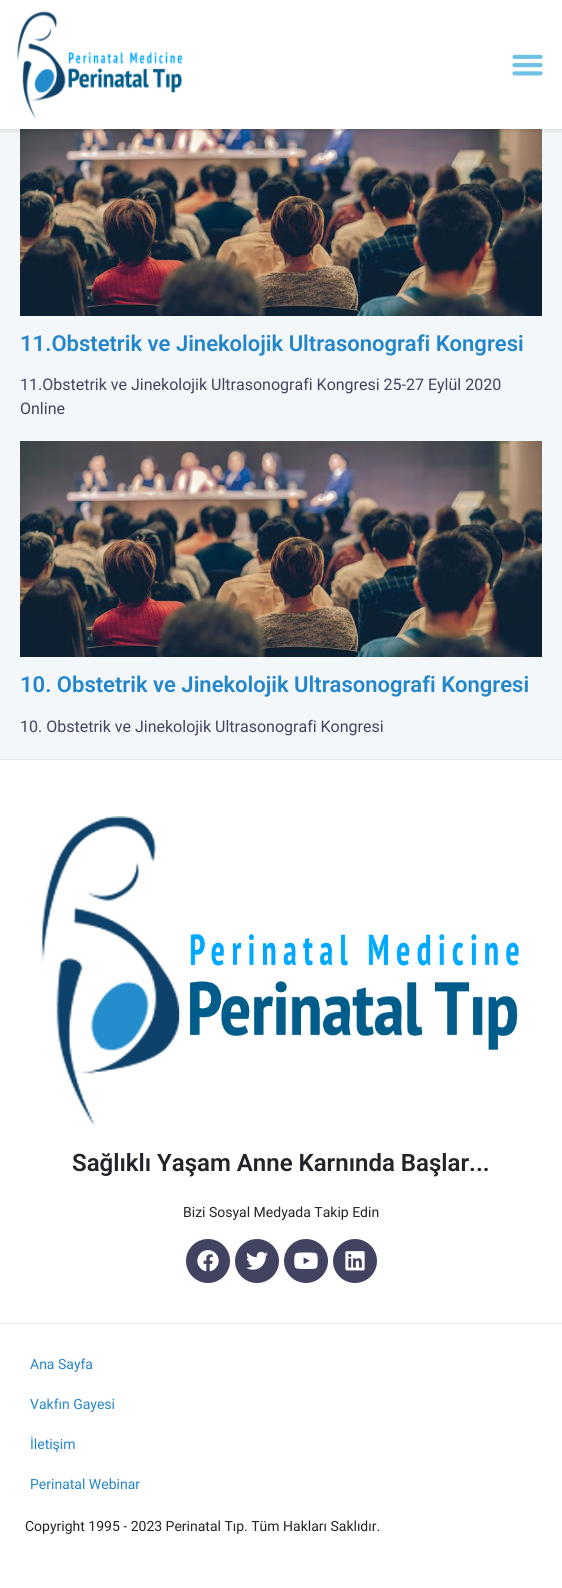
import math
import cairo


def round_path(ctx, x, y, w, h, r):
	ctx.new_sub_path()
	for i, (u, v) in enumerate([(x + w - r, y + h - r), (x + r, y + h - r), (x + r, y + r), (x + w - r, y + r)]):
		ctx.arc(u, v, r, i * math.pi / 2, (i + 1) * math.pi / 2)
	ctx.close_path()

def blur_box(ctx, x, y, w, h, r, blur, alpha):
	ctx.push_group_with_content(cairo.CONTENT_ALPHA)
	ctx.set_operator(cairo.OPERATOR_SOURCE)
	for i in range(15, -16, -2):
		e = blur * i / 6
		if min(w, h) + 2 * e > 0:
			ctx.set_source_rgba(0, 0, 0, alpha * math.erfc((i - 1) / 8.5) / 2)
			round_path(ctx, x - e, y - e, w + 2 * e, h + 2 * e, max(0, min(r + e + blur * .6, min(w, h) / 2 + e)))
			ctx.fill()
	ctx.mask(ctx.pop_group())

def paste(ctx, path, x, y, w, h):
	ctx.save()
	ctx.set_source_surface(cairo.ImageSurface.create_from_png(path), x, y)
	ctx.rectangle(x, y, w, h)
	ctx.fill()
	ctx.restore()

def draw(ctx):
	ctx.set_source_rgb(0.953, 0.965, 0.973)
	ctx.paint()
	paste(ctx, 'media/3.png', 20, 129, 522, 187)
	ctx.set_source_rgb(0, 0, 0)
	blur_box(ctx, 0, 1, 562, 129, 0, 2.5, 0.15)
	ctx.set_source_rgb(1, 1, 1)
	ctx.rectangle(0, 0, 562, 129)
	ctx.fill()
	paste(ctx, 'media/1.png', 17, 11, 166, 108)
	paste(ctx, 'media/2.png', 512, 54, 31, 22)
	ctx.select_font_face('Roboto SemiBold')
	ctx.set_font_size(22)
	ctx.set_source_rgb(0.137, 0.522, 0.796)
	ctx.move_to(20, 351)
	ctx.show_text('11.Obstetrik ve Jinekolojik Ultrasonografi Kongresi')
	ctx.select_font_face('Roboto')
	ctx.set_font_size(16)
	ctx.set_source_rgb(0.259, 0.263, 0.376)
	ctx.move_to(20, 390)
	ctx.show_text('11.Obstetrik ve Jinekolojik Ultrasonografi Kongresi 25-27 Eylül 2020')
	ctx.move_to(20, 414)
	ctx.show_text('Online')
	paste(ctx, 'media/4.png', 20, 441, 522, 216)
	ctx.select_font_face('Roboto SemiBold')
	ctx.set_font_size(22)
	ctx.set_source_rgb(0.137, 0.522, 0.796)
	ctx.move_to(20, 692)
	ctx.show_text('10. Obstetrik ve Jinekolojik Ultrasonografi Kongresi')
	ctx.select_font_face('Roboto')
	ctx.set_font_size(16)
	ctx.set_source_rgb(0.259, 0.263, 0.376)
	ctx.move_to(20, 732)
	ctx.show_text('10. Obstetrik ve Jinekolojik Ultrasonografi Kongresi')
	ctx.set_source_rgb(1, 1, 1)
	ctx.rectangle(0, 760, 562, 828)
	ctx.fill()
	ctx.set_source_rgb(0.91, 0.925, 0.937)
	ctx.rectangle(0, 759, 562, 1)
	ctx.fill()
	paste(ctx, 'media/5.png', 41, 816, 478, 310)
	ctx.select_font_face('Roboto SemiBold')
	ctx.set_font_size(24)
	ctx.set_source_rgb(0.129, 0.145, 0.161)
	ctx.move_to(72, 1171)
	ctx.show_text('Sağlıklı Yaşam Anne Karnında Başlar...')
	ctx.select_font_face('Roboto')
	ctx.set_font_size(14)
	ctx.move_to(183, 1217)
	ctx.show_text('Bizi Sosyal Medyada Takip Edin')
	ctx.set_source_rgb(0.259, 0.263, 0.376)
	ctx.new_path()
	ctx.arc(208, 1261, 22, 0, 2 * math.pi)
	ctx.fill()
	paste(ctx, 'media/6.png', 197, 1250, 22, 22)
	ctx.arc(257, 1261, 22, 0, 2 * math.pi)
	ctx.fill()
	paste(ctx, 'media/7.png', 246, 1251, 22, 19)
	ctx.arc(306, 1261, 22, 0, 2 * math.pi)
	ctx.fill()
	paste(ctx, 'media/8.png', 294, 1252, 24, 17)
	ctx.arc(355, 1261, 22, 0, 2 * math.pi)
	ctx.fill()
	paste(ctx, 'media/9.png', 345, 1251, 20, 20)
	ctx.set_source_rgb(0.91, 0.925, 0.937)
	ctx.rectangle(0, 1323, 562, 1)
	ctx.fill()
	ctx.set_source_rgb(0.137, 0.522, 0.796)
	for x, y, s in [
		(30, 1369, 'Ana Sayfa'),
		(30, 1409, 'Vakfın Gayesi'),
		(30, 1449, 'İletişim'),
		(30, 1489, 'Perinatal Webinar'),
	]:
		ctx.move_to(x, y)
		ctx.show_text(s)
	ctx.set_source_rgb(0.129, 0.145, 0.161)
	ctx.move_to(25, 1531)
	ctx.show_text('Copyright 1995 - 2023 Perinatal Tıp. Tüm Hakları Saklıdır.')


surface = cairo.ImageSurface(cairo.FORMAT_RGB24, 562, 1588)
ctx = cairo.Context(surface)
options = cairo.FontOptions()
options.set_hint_metrics(cairo.HINT_METRICS_OFF)
options.set_hint_style(cairo.HINT_STYLE_NONE)
ctx.set_font_options(options)
ctx.set_miter_limit(4)
draw(ctx)
surface.write_to_png('image.png')
